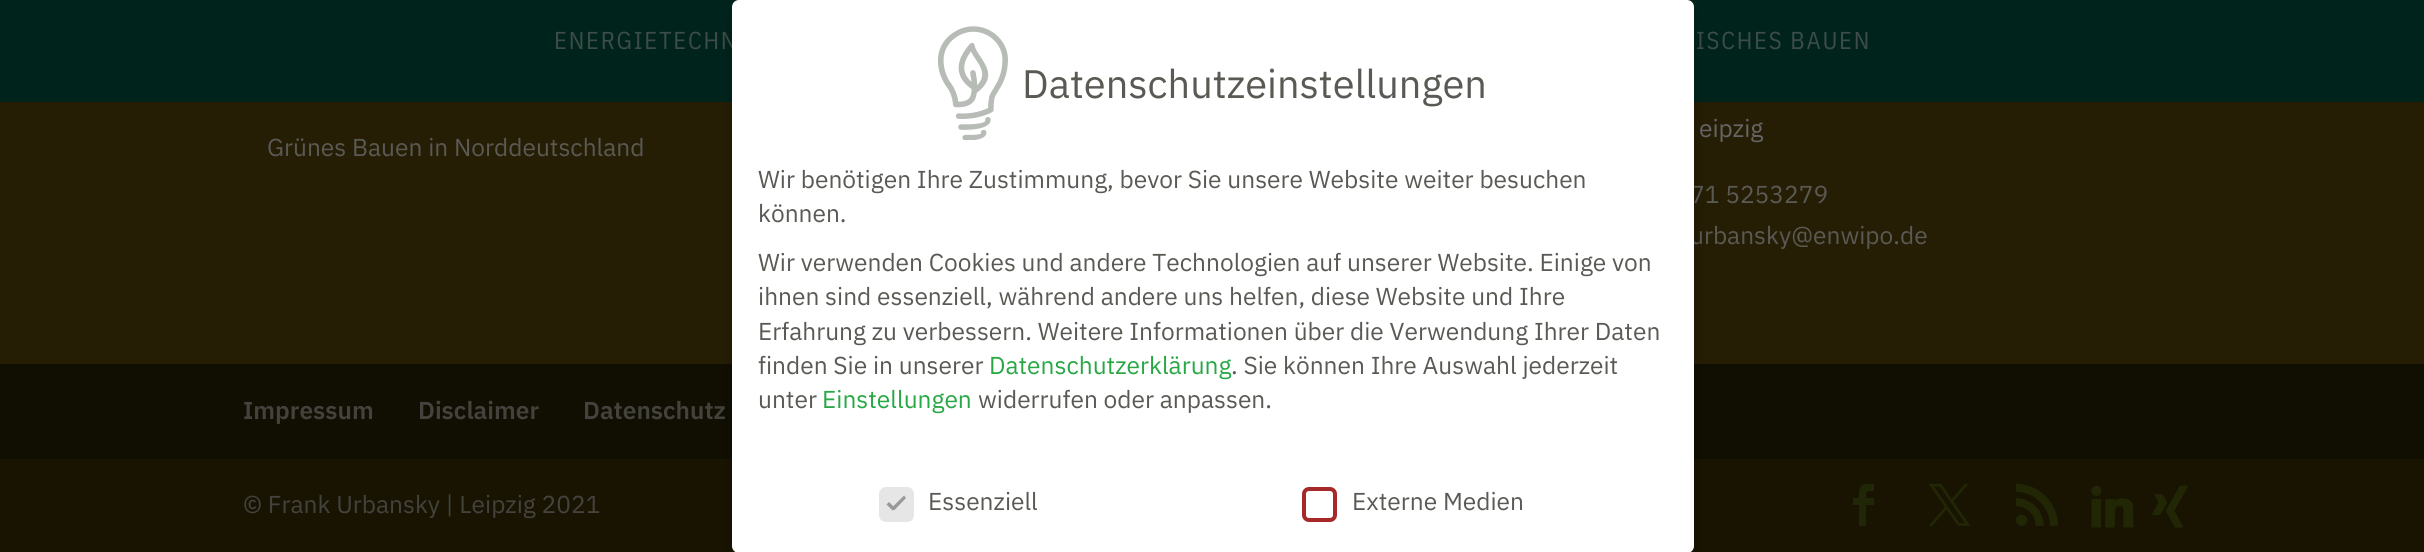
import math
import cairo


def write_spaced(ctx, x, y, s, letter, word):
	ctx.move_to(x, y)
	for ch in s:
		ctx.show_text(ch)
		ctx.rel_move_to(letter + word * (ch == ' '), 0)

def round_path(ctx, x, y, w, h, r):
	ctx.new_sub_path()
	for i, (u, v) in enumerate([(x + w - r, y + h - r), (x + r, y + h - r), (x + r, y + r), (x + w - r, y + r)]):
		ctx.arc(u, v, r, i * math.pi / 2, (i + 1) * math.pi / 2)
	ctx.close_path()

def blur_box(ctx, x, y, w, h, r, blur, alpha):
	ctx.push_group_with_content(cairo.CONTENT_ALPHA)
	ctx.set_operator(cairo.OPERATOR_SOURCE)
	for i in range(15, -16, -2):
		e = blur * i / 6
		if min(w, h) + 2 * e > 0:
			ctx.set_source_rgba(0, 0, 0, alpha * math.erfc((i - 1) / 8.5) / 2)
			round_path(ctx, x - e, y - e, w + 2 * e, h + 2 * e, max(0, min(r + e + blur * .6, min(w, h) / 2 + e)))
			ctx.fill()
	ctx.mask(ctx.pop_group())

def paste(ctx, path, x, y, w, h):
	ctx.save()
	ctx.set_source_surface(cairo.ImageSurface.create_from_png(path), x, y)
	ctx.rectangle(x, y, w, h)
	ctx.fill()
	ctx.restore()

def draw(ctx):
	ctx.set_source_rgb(0.145, 0.114, 0.016)
	ctx.paint()
	ctx.set_source_rgb(0, 0.141, 0.11)
	ctx.rectangle(0, 0, 2424, 102)
	ctx.fill()
	ctx.select_font_face('IBM Plex Sans Condensed')
	ctx.set_font_size(24.5)
	ctx.set_source_rgb(0.239, 0.298, 0.282)
	write_spaced(ctx, 554, 49, 'ENERGIETECHN', 1.75, 0)
	write_spaced(ctx, 1696, 49, 'ISCHES BAUEN', 1.75, 0)
	ctx.select_font_face('IBM Plex Sans')
	ctx.set_source_rgb(0.353, 0.349, 0.329)
	ctx.move_to(267, 156)
	ctx.show_text('Grünes Bauen in Norddeutschland')
	ctx.set_source_rgb(0.4, 0.4, 0.4)
	ctx.move_to(1699, 137)
	ctx.show_text('eipzig')
	ctx.set_source_rgb(0.353, 0.349, 0.329)
	ctx.move_to(1690, 203)
	ctx.show_text('71 5253279')
	ctx.move_to(1690, 244)
	ctx.show_text('urbansky@enwipo.de')
	ctx.set_source_rgb(0.067, 0.055, 0.008)
	ctx.rectangle(0, 364, 2424, 95)
	ctx.fill()
	ctx.select_font_face('IBM Plex Sans SemiBold')
	ctx.set_source_rgb(0.263, 0.259, 0.239)
	for x, y, s in [
		(243, 419, 'Impressum'),
		(418, 419, 'Disclaimer'),
		(583, 419, 'Datenschutz'),
	]:
		ctx.move_to(x, y)
		ctx.show_text(s)
	ctx.set_source_rgb(0.098, 0.078, 0.008)
	ctx.rectangle(0, 459, 2424, 93)
	ctx.fill()
	ctx.select_font_face('IBM Plex Sans')
	ctx.set_source_rgb(0.263, 0.259, 0.239)
	ctx.move_to(243, 513)
	ctx.show_text('© Frank Urbansky | Leipzig 2021')
	ctx.set_source_rgb(0.125, 0.153, 0.024)
	ctx.new_path()
	ctx.move_to(1859, 526)
	ctx.line_to(1866, 526)
	ctx.line_to(1866, 505)
	ctx.line_to(1874, 505)
	ctx.line_to(1874, 498)
	ctx.line_to(1866, 498)
	ctx.curve_to(1866, 490, 1866, 491, 1874, 491)
	ctx.line_to(1874, 484)
	ctx.curve_to(1861, 484, 1859, 483, 1859, 498)
	ctx.line_to(1853, 498)
	ctx.line_to(1853, 505)
	ctx.line_to(1859, 505)
	ctx.close_path()
	ctx.fill()
	paste(ctx, 'media/1.png', 1928, 483, 43, 43)
	paste(ctx, 'media/2.png', 2016, 483, 42, 43)
	paste(ctx, 'media/3.png', 2091, 485, 43, 43)
	paste(ctx, 'media/4.png', 2152, 485, 36, 43)
	ctx.set_source_rgb(0, 0, 0)
	blur_box(ctx, 732, 7, 962, 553, 7, 7, 0.2)
	ctx.set_source_rgb(1, 1, 1)
	round_path(ctx, 732, 0, 962, 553, 7)
	ctx.fill()
	paste(ctx, 'media/5.png', 938, 26, 70, 114)
	ctx.set_font_size(39.75)
	ctx.set_source_rgb(0.353, 0.349, 0.329)
	ctx.move_to(1022, 98)
	ctx.show_text('Datenschutzeinstellungen')
	ctx.set_font_size(24.5)
	for x, y, s in [
		(758, 188, 'Wir benötigen Ihre Zustimmung, bevor Sie unsere Website weiter besuchen'),
		(758, 222, 'können.'),
		(758, 271, 'Wir verwenden Cookies und andere Technologien auf unserer Website. Einige von'),
		(758, 305, 'ihnen sind essenziell, während andere uns helfen, diese Website und Ihre'),
		(758, 340, 'Erfahrung zu verbessern. Weitere Informationen über die Verwendung Ihrer Daten'),
		(758, 374, 'finden Sie in unserer'),
	]:
		ctx.move_to(x, y)
		ctx.show_text(s)
	ctx.set_source_rgb(0.157, 0.655, 0.271)
	ctx.move_to(989, 374)
	ctx.show_text('Datenschutzerklärung')
	ctx.set_source_rgb(0.353, 0.349, 0.329)
	ctx.move_to(1231, 374)
	ctx.show_text('. Sie können Ihre Auswahl jederzeit')
	ctx.move_to(758, 408)
	ctx.show_text('unter')
	ctx.set_source_rgb(0.157, 0.655, 0.271)
	ctx.move_to(822, 408)
	ctx.show_text('Einstellungen')
	ctx.set_source_rgb(0.353, 0.349, 0.329)
	ctx.move_to(978, 408)
	ctx.show_text('widerrufen oder anpassen.')
	ctx.set_source_rgb(0.902, 0.902, 0.902)
	round_path(ctx, 881, 489, 31, 31, 5)
	ctx.fill_preserve()
	ctx.set_line_width(4)
	ctx.stroke()
	ctx.set_source_rgb(0.6, 0.6, 0.6)
	ctx.new_path()
	ctx.move_to(904, 495.5)
	ctx.line_to(906, 498)
	ctx.line_to(894, 510.5)
	ctx.line_to(891.5, 508)
	ctx.close_path()
	ctx.fill()
	ctx.new_path()
	ctx.move_to(889, 502)
	ctx.line_to(895, 508)
	ctx.line_to(892.5, 510.5)
	ctx.line_to(886.5, 504.5)
	ctx.close_path()
	ctx.fill()
	ctx.set_source_rgb(0.353, 0.349, 0.329)
	ctx.move_to(928, 510)
	ctx.show_text('Essenziell')
	round_path(ctx, 1304, 489, 31, 31, 5)
	ctx.set_source_rgb(0.655, 0.157, 0.157)
	ctx.stroke()
	ctx.set_source_rgb(0.353, 0.349, 0.329)
	ctx.move_to(1352, 510)
	ctx.show_text('Externe Medien')


surface = cairo.ImageSurface(cairo.FORMAT_RGB24, 2424, 552)
ctx = cairo.Context(surface)
options = cairo.FontOptions()
options.set_hint_metrics(cairo.HINT_METRICS_OFF)
options.set_hint_style(cairo.HINT_STYLE_NONE)
ctx.set_font_options(options)
ctx.set_miter_limit(4)
draw(ctx)
surface.write_to_png('image.png')
